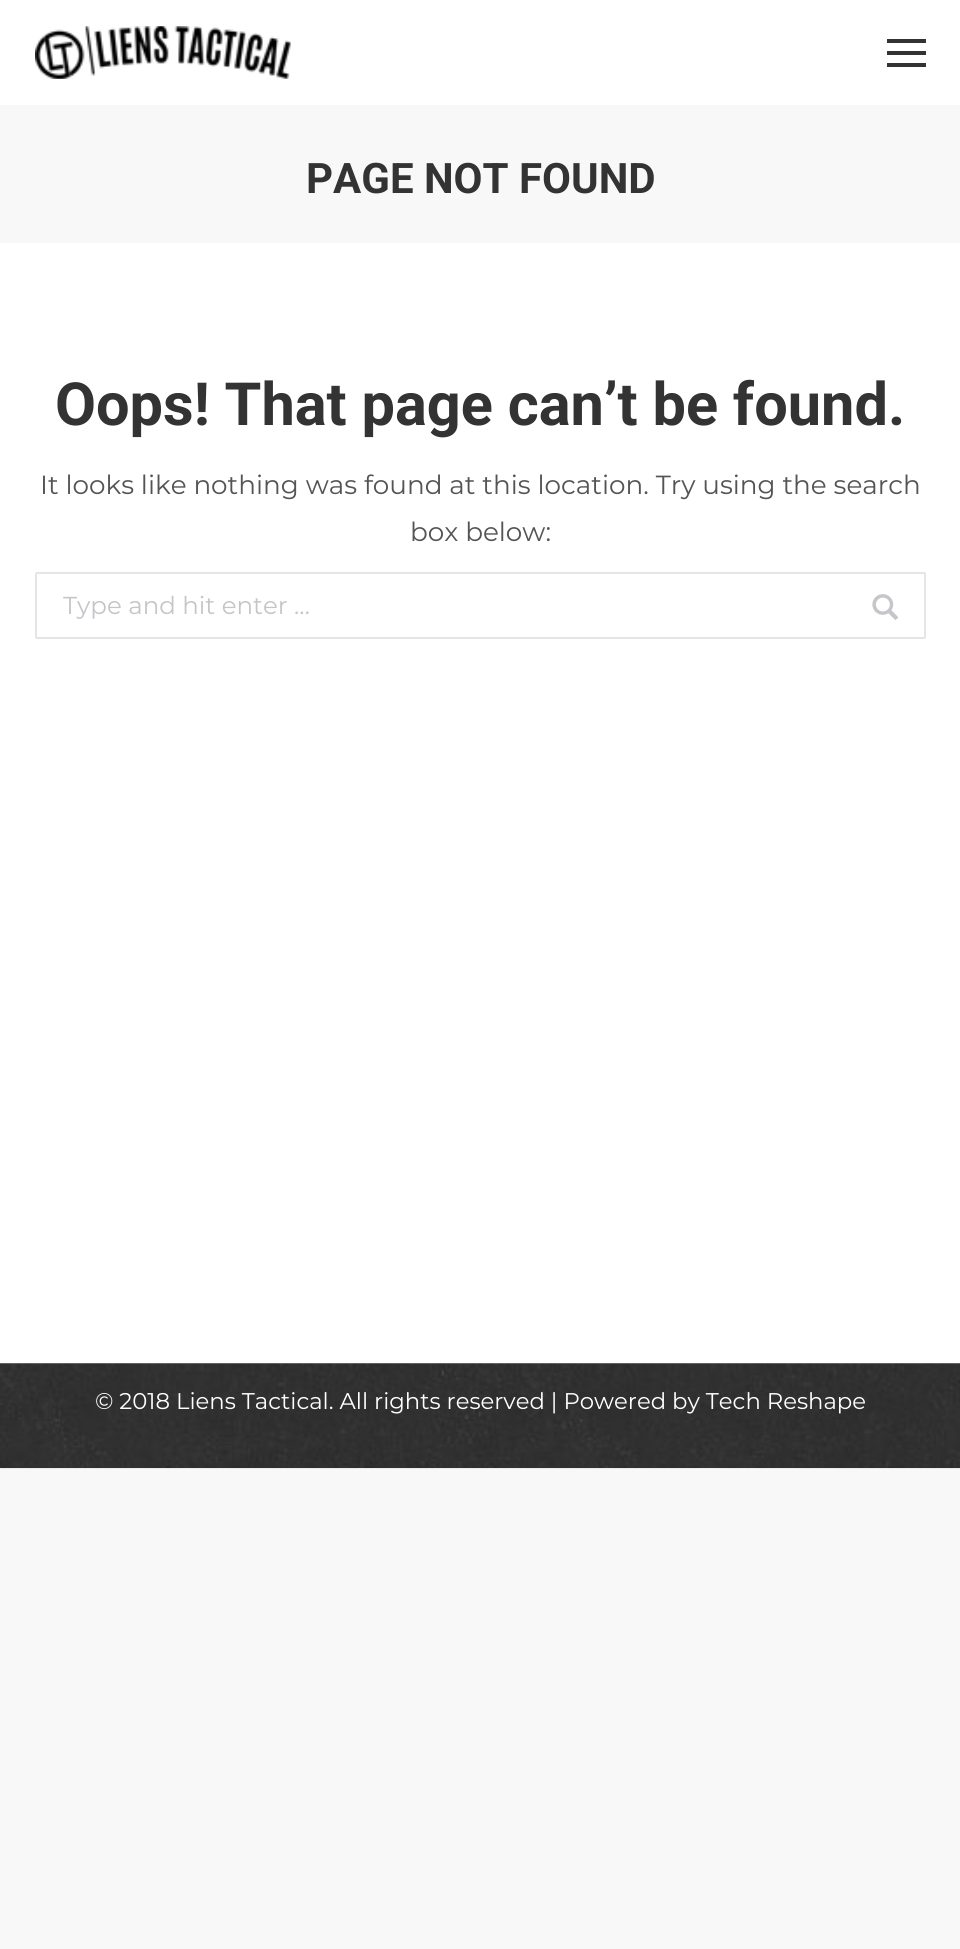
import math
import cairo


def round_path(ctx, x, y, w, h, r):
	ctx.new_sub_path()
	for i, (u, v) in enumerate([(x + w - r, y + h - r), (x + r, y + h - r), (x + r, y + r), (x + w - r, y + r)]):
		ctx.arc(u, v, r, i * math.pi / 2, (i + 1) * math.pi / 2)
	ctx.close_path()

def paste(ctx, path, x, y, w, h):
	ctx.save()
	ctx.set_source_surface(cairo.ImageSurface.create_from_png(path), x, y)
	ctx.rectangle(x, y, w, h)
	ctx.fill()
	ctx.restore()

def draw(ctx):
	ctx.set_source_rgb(0.969, 0.969, 0.969)
	ctx.paint()
	ctx.set_source_rgb(1, 1, 1)
	ctx.rectangle(0, 0, 960, 1364)
	ctx.fill()
	paste(ctx, 'media/1.png', 35, 26, 256, 53)
	ctx.set_source_rgb(0.2, 0.2, 0.2)
	ctx.rectangle(887, 51, 39, 4)
	ctx.rectangle(887, 39, 39, 4)
	ctx.rectangle(887, 63, 39, 4)
	ctx.fill()
	ctx.set_source_rgb(0.969, 0.969, 0.969)
	ctx.rectangle(0, 105, 960, 138)
	ctx.fill()
	ctx.select_font_face('Roboto', cairo.FONT_SLANT_NORMAL, cairo.FONT_WEIGHT_BOLD)
	ctx.set_font_size(42)
	ctx.set_source_rgb(0.2, 0.2, 0.2)
	ctx.move_to(306, 193)
	ctx.show_text('PAGE NOT FOUND')
	ctx.set_font_size(59.5)
	ctx.move_to(55, 425)
	ctx.show_text('Oops! That page can’t be found.')
	ctx.select_font_face('Montserrat')
	ctx.set_font_size(26.25)
	ctx.set_source_rgb(0.329, 0.329, 0.329)
	ctx.move_to(40, 494)
	ctx.show_text('It looks like nothing was found at this location. Try using the search')
	ctx.move_to(410, 541)
	ctx.show_text('box below:')
	round_path(ctx, 36, 573, 889, 65, 1)
	ctx.set_source_rgb(0.898, 0.898, 0.898)
	ctx.stroke()
	ctx.set_font_size(24.5)
	ctx.set_source_rgb(0.769, 0.773, 0.788)
	ctx.move_to(63, 614)
	ctx.show_text('Type and hit enter …')
	paste(ctx, 'media/2.png', 872, 594, 27, 26)
	paste(ctx, 'media/3.png', 0, 1363, 960, 106)
	ctx.set_font_size(22.75)
	ctx.set_source_rgb(1, 1, 1)
	ctx.move_to(95, 1409)
	ctx.show_text('© 2018 Liens Tactical. All rights reserved | Powered by Tech Reshape')


surface = cairo.ImageSurface(cairo.FORMAT_RGB24, 960, 1949)
ctx = cairo.Context(surface)
options = cairo.FontOptions()
options.set_hint_metrics(cairo.HINT_METRICS_OFF)
options.set_hint_style(cairo.HINT_STYLE_NONE)
ctx.set_font_options(options)
ctx.set_miter_limit(4)
draw(ctx)
surface.write_to_png('image.png')
